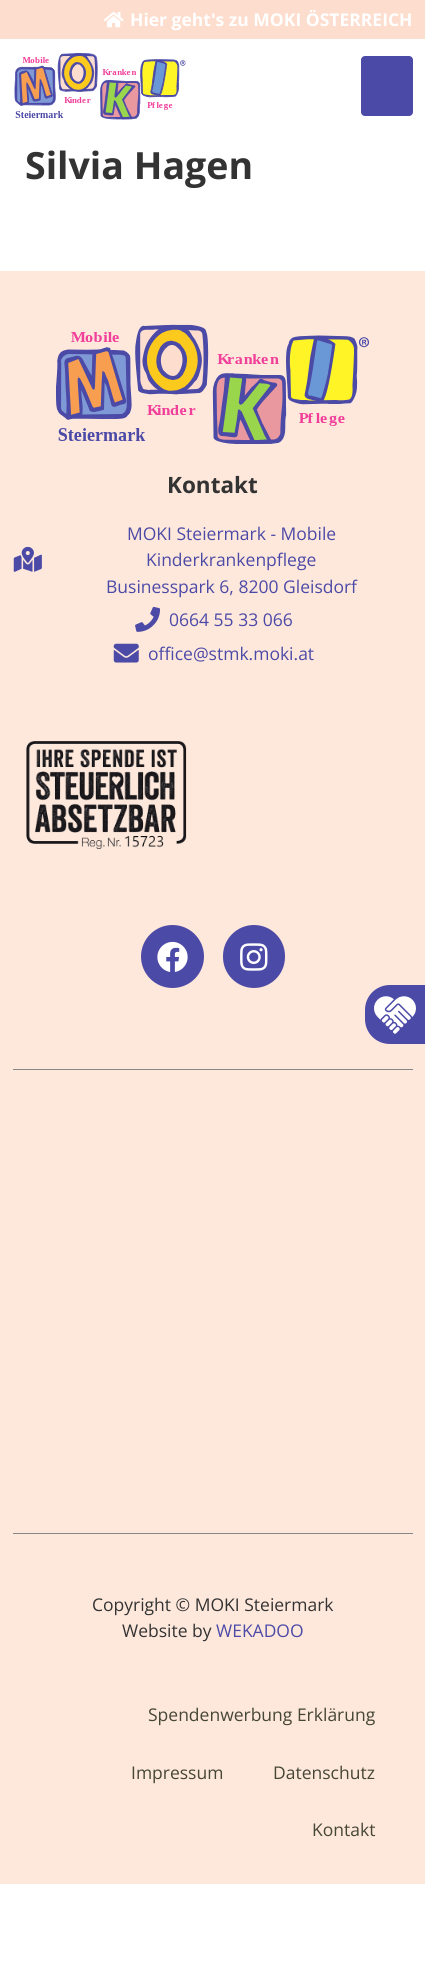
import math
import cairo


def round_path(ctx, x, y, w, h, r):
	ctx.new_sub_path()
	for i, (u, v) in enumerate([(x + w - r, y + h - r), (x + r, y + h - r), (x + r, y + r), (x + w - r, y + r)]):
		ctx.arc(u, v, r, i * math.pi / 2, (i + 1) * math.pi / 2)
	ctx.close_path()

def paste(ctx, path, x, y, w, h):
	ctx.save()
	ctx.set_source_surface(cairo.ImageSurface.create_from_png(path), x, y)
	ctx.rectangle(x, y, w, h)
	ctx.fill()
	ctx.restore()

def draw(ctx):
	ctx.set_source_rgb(1, 1, 1)
	ctx.paint()
	ctx.set_source_rgb(0.992, 0.867, 0.804)
	ctx.rectangle(0, 0, 425, 39)
	ctx.fill()
	paste(ctx, 'media/1.png', 104, 12, 20, 16)
	ctx.select_font_face('Open Sans', cairo.FONT_SLANT_NORMAL, cairo.FONT_WEIGHT_BOLD)
	ctx.set_font_size(17.5)
	ctx.set_source_rgb(1, 1, 1)
	ctx.move_to(130, 26)
	ctx.show_text('Hier geht\'s zu MOKI ÖSTERREICH')
	paste(ctx, 'media/2.png', 14, 53, 172, 67)
	ctx.set_source_rgb(0.298, 0.29, 0.655)
	round_path(ctx, 361, 56, 52, 60, 4)
	ctx.fill()
	ctx.set_source_rgb(0.996, 0.91, 0.863)
	ctx.rectangle(0, 271, 425, 1613)
	ctx.fill()
	ctx.set_source_rgb(0.298, 0.29, 0.655)
	ctx.new_path()
	ctx.move_to(390, 985)
	ctx.line_to(425, 985)
	ctx.line_to(425, 1044)
	ctx.line_to(390, 1044)
	ctx.curve_to(376, 1044, 365, 1033, 365, 1019)
	ctx.line_to(365, 1010)
	ctx.curve_to(365, 996, 376, 985, 390, 985)
	ctx.close_path()
	ctx.fill()
	paste(ctx, 'media/3.png', 374, 996, 42, 38)
	ctx.set_font_size(37.5)
	ctx.set_source_rgb(0.2, 0.2, 0.2)
	ctx.move_to(25, 179)
	ctx.show_text('Silvia Hagen')
	paste(ctx, 'media/4.png', 56, 324, 313, 120)
	ctx.set_font_size(22.5)
	ctx.move_to(167, 493)
	ctx.show_text('Kontakt')
	paste(ctx, 'media/5.png', 13, 546, 29, 26)
	ctx.select_font_face('Open Sans')
	ctx.set_font_size(17.5)
	ctx.set_source_rgb(0.298, 0.29, 0.655)
	for x, y, s in [
		(127, 540, 'MOKI Steiermark - Mobile'),
		(146, 566, 'Kinderkrankenpflege'),
		(106, 593, 'Businesspark 6, 8200 Gleisdorf'),
	]:
		ctx.move_to(x, y)
		ctx.show_text(s)
	paste(ctx, 'media/6.png', 135, 606, 26, 26)
	ctx.move_to(169, 626)
	ctx.show_text('0664 55 33 066')
	paste(ctx, 'media/7.png', 113, 643, 26, 20)
	ctx.move_to(148, 660)
	ctx.show_text('office@stmk.moki.at')
	paste(ctx, 'media/8.png', 26, 741, 161, 109)
	ctx.arc(172.5, 956.5, 31.5, 0, 2 * math.pi)
	ctx.fill()
	paste(ctx, 'media/9.png', 157, 941, 31, 31)
	round_path(ctx, 223, 925, 62, 63, 31)
	ctx.fill()
	paste(ctx, 'media/10.png', 240, 943, 28, 28)
	ctx.set_source_rgb(0.533, 0.533, 0.533)
	ctx.rectangle(13, 1069, 400, 1)
	ctx.fill()
	ctx.rectangle(13, 1533, 400, 1)
	ctx.fill()
	ctx.set_source_rgb(0.2, 0.2, 0.2)
	ctx.move_to(92, 1611)
	ctx.show_text('Copyright © MOKI Steiermark')
	ctx.move_to(122, 1637)
	ctx.show_text('Website by')
	ctx.set_source_rgb(0.298, 0.29, 0.655)
	ctx.move_to(216, 1637)
	ctx.show_text('WEKADOO')
	ctx.set_source_rgb(0.271, 0.275, 0.212)
	for x, y, s in [
		(148, 1721, 'Spendenwerbung Erklärung'),
		(131, 1779, 'Impressum'),
		(273, 1779, 'Datenschutz'),
		(312, 1836, 'Kontakt'),
	]:
		ctx.move_to(x, y)
		ctx.show_text(s)


surface = cairo.ImageSurface(cairo.FORMAT_RGB24, 425, 1969)
ctx = cairo.Context(surface)
options = cairo.FontOptions()
options.set_hint_metrics(cairo.HINT_METRICS_OFF)
options.set_hint_style(cairo.HINT_STYLE_NONE)
ctx.set_font_options(options)
ctx.set_miter_limit(4)
draw(ctx)
surface.write_to_png('image.png')
